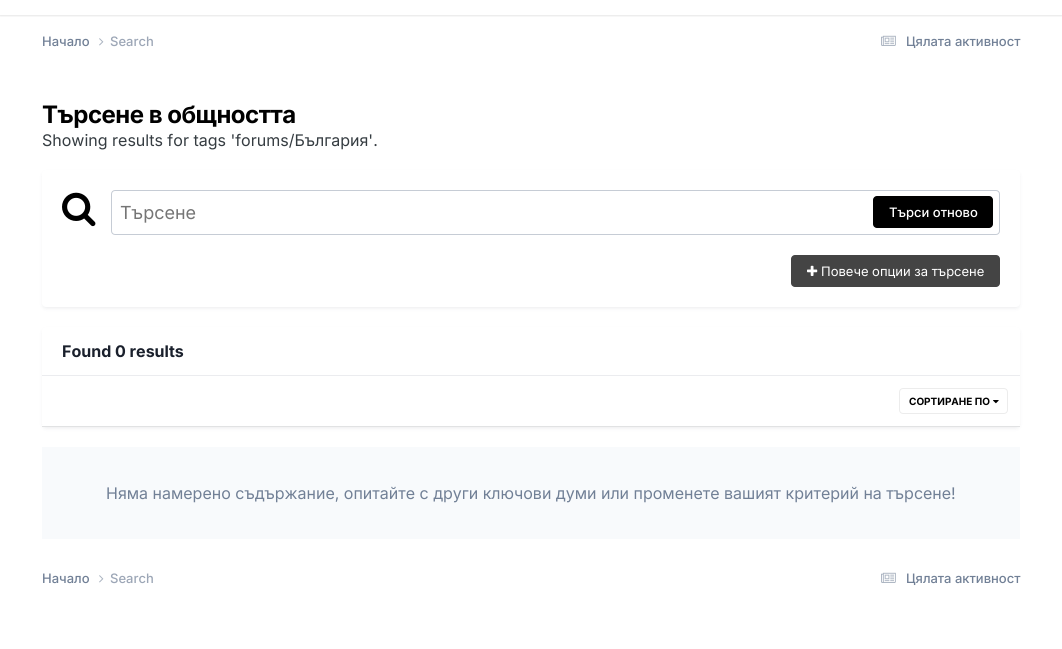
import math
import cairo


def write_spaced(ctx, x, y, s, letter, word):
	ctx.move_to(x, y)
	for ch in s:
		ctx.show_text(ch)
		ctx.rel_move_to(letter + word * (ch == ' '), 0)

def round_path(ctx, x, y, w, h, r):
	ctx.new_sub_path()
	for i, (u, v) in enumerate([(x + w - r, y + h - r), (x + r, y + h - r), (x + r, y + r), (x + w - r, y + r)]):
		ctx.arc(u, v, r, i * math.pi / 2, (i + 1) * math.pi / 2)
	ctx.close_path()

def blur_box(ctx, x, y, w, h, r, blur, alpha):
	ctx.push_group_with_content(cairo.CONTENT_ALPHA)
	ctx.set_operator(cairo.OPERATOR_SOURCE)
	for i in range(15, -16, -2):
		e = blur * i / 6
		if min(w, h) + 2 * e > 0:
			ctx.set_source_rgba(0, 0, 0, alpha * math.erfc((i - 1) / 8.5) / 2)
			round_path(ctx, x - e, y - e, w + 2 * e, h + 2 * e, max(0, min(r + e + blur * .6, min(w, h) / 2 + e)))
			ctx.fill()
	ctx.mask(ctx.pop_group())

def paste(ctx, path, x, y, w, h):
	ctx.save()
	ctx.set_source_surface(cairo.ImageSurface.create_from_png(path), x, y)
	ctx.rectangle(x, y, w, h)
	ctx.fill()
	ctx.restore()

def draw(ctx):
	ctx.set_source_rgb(1, 1, 1)
	ctx.paint()
	ctx.save()
	ctx.rectangle(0, 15, 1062, 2)
	ctx.clip()
	ctx.set_source_rgb(0, 0, 0)
	blur_box(ctx, 0, -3, 1062, 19, 0, 1, 0.1)
	ctx.restore()
	ctx.select_font_face('Inter Medium')
	ctx.set_font_size(13)
	ctx.set_source_rgb(0.443, 0.502, 0.588)
	ctx.move_to(42, 46)
	ctx.show_text('Начало')
	paste(ctx, 'media/1.png', 99, 38, 5, 8)
	ctx.set_source_rgb(0.612, 0.651, 0.714)
	ctx.move_to(110, 46)
	ctx.show_text('Search')
	paste(ctx, 'media/2.png', 881, 35, 15, 11)
	ctx.set_source_rgb(0.443, 0.502, 0.588)
	ctx.move_to(906, 46)
	ctx.show_text('Цялата активност')
	ctx.select_font_face('Inter', cairo.FONT_SLANT_NORMAL, cairo.FONT_WEIGHT_BOLD)
	ctx.set_font_size(24)
	ctx.set_source_rgb(0, 0, 0)
	write_spaced(ctx, 42, 123, 'Търсене в общността', -0.5, 0)
	ctx.select_font_face('Inter')
	ctx.set_font_size(16)
	ctx.set_source_rgb(0.208, 0.235, 0.255)
	ctx.move_to(42, 146)
	ctx.show_text('Showing results for tags \'forums/България\'.')
	ctx.set_source_rgb(0.176, 0.216, 0.282)
	blur_box(ctx, 43, 173, 976, 135, 3, 2, 0.1)
	ctx.set_source_rgb(1, 1, 1)
	round_path(ctx, 42, 170, 978, 137, 4)
	ctx.fill()
	paste(ctx, 'media/3.png', 62, 192, 34, 35)
	round_path(ctx, 111.5, 190.5, 888, 44, 3.5)
	ctx.set_source_rgb(0.776, 0.8, 0.835)
	ctx.set_line_width(1)
	ctx.stroke()
	ctx.set_font_size(18)
	ctx.set_source_rgb(0.459, 0.459, 0.459)
	ctx.move_to(120, 219)
	ctx.show_text('Търсене')
	ctx.set_source_rgb(0, 0, 0)
	round_path(ctx, 873, 196, 120, 32, 4)
	ctx.fill()
	ctx.select_font_face('Inter Medium')
	ctx.set_font_size(13)
	ctx.set_source_rgb(1, 1, 1)
	ctx.move_to(889, 217)
	ctx.show_text('Търси отново')
	ctx.set_source_rgb(0.267, 0.267, 0.267)
	round_path(ctx, 791, 255, 209, 32, 4)
	ctx.fill()
	paste(ctx, 'media/4.png', 807, 265, 11, 11)
	ctx.select_font_face('Inter')
	ctx.set_source_rgb(1, 1, 1)
	ctx.move_to(821, 276)
	ctx.show_text('Повече опции за търсене')
	ctx.set_source_rgb(0.176, 0.216, 0.282)
	blur_box(ctx, 43, 330, 976, 98, 3, 2, 0.1)
	ctx.set_source_rgb(1, 1, 1)
	round_path(ctx, 42, 327, 978, 100, 4)
	ctx.fill()
	ctx.set_source_rgb(0.918, 0.925, 0.937)
	ctx.rectangle(42, 375, 978, 1)
	ctx.fill()
	ctx.select_font_face('Inter', cairo.FONT_SLANT_NORMAL, cairo.FONT_WEIGHT_BOLD)
	ctx.set_font_size(16)
	ctx.set_source_rgb(0.102, 0.125, 0.173)
	ctx.move_to(62, 357)
	ctx.show_text('Found 0 results')
	ctx.set_source_rgb(1, 1, 1)
	ctx.rectangle(42, 425, 978, 1)
	ctx.fill()
	ctx.set_source_rgb(0.882, 0.886, 0.89)
	ctx.rectangle(42, 426, 978, 1)
	ctx.fill()
	paste(ctx, 'media/5.png', 993, 400, 6, 4)
	round_path(ctx, 899.5, 388.5, 108, 25, 3.5)
	ctx.set_source_rgb(0.922, 0.925, 0.925)
	ctx.stroke()
	ctx.set_font_size(10)
	ctx.set_source_rgb(0, 0, 0)
	ctx.move_to(909, 405)
	ctx.show_text('СОРТИРАНЕ ПО')
	ctx.set_source_rgb(0.969, 0.98, 0.988)
	ctx.rectangle(42, 447, 978, 92)
	ctx.fill()
	ctx.select_font_face('Inter')
	ctx.set_font_size(16)
	ctx.set_source_rgb(0.443, 0.502, 0.588)
	ctx.move_to(106, 499)
	ctx.show_text('Няма намерено съдържание, опитайте с други ключови думи или променете вашият критерий на търсене!')
	ctx.select_font_face('Inter Medium')
	ctx.set_font_size(13)
	ctx.move_to(42, 583)
	ctx.show_text('Начало')
	paste(ctx, 'media/1.png', 99, 575, 5, 8)
	ctx.set_source_rgb(0.612, 0.651, 0.714)
	ctx.move_to(110, 583)
	ctx.show_text('Search')
	paste(ctx, 'media/2.png', 881, 572, 15, 11)
	ctx.set_source_rgb(0.443, 0.502, 0.588)
	ctx.move_to(906, 583)
	ctx.show_text('Цялата активност')


surface = cairo.ImageSurface(cairo.FORMAT_RGB24, 1062, 649)
ctx = cairo.Context(surface)
options = cairo.FontOptions()
options.set_hint_metrics(cairo.HINT_METRICS_OFF)
options.set_hint_style(cairo.HINT_STYLE_NONE)
ctx.set_font_options(options)
ctx.set_miter_limit(4)
draw(ctx)
surface.write_to_png('image.png')
